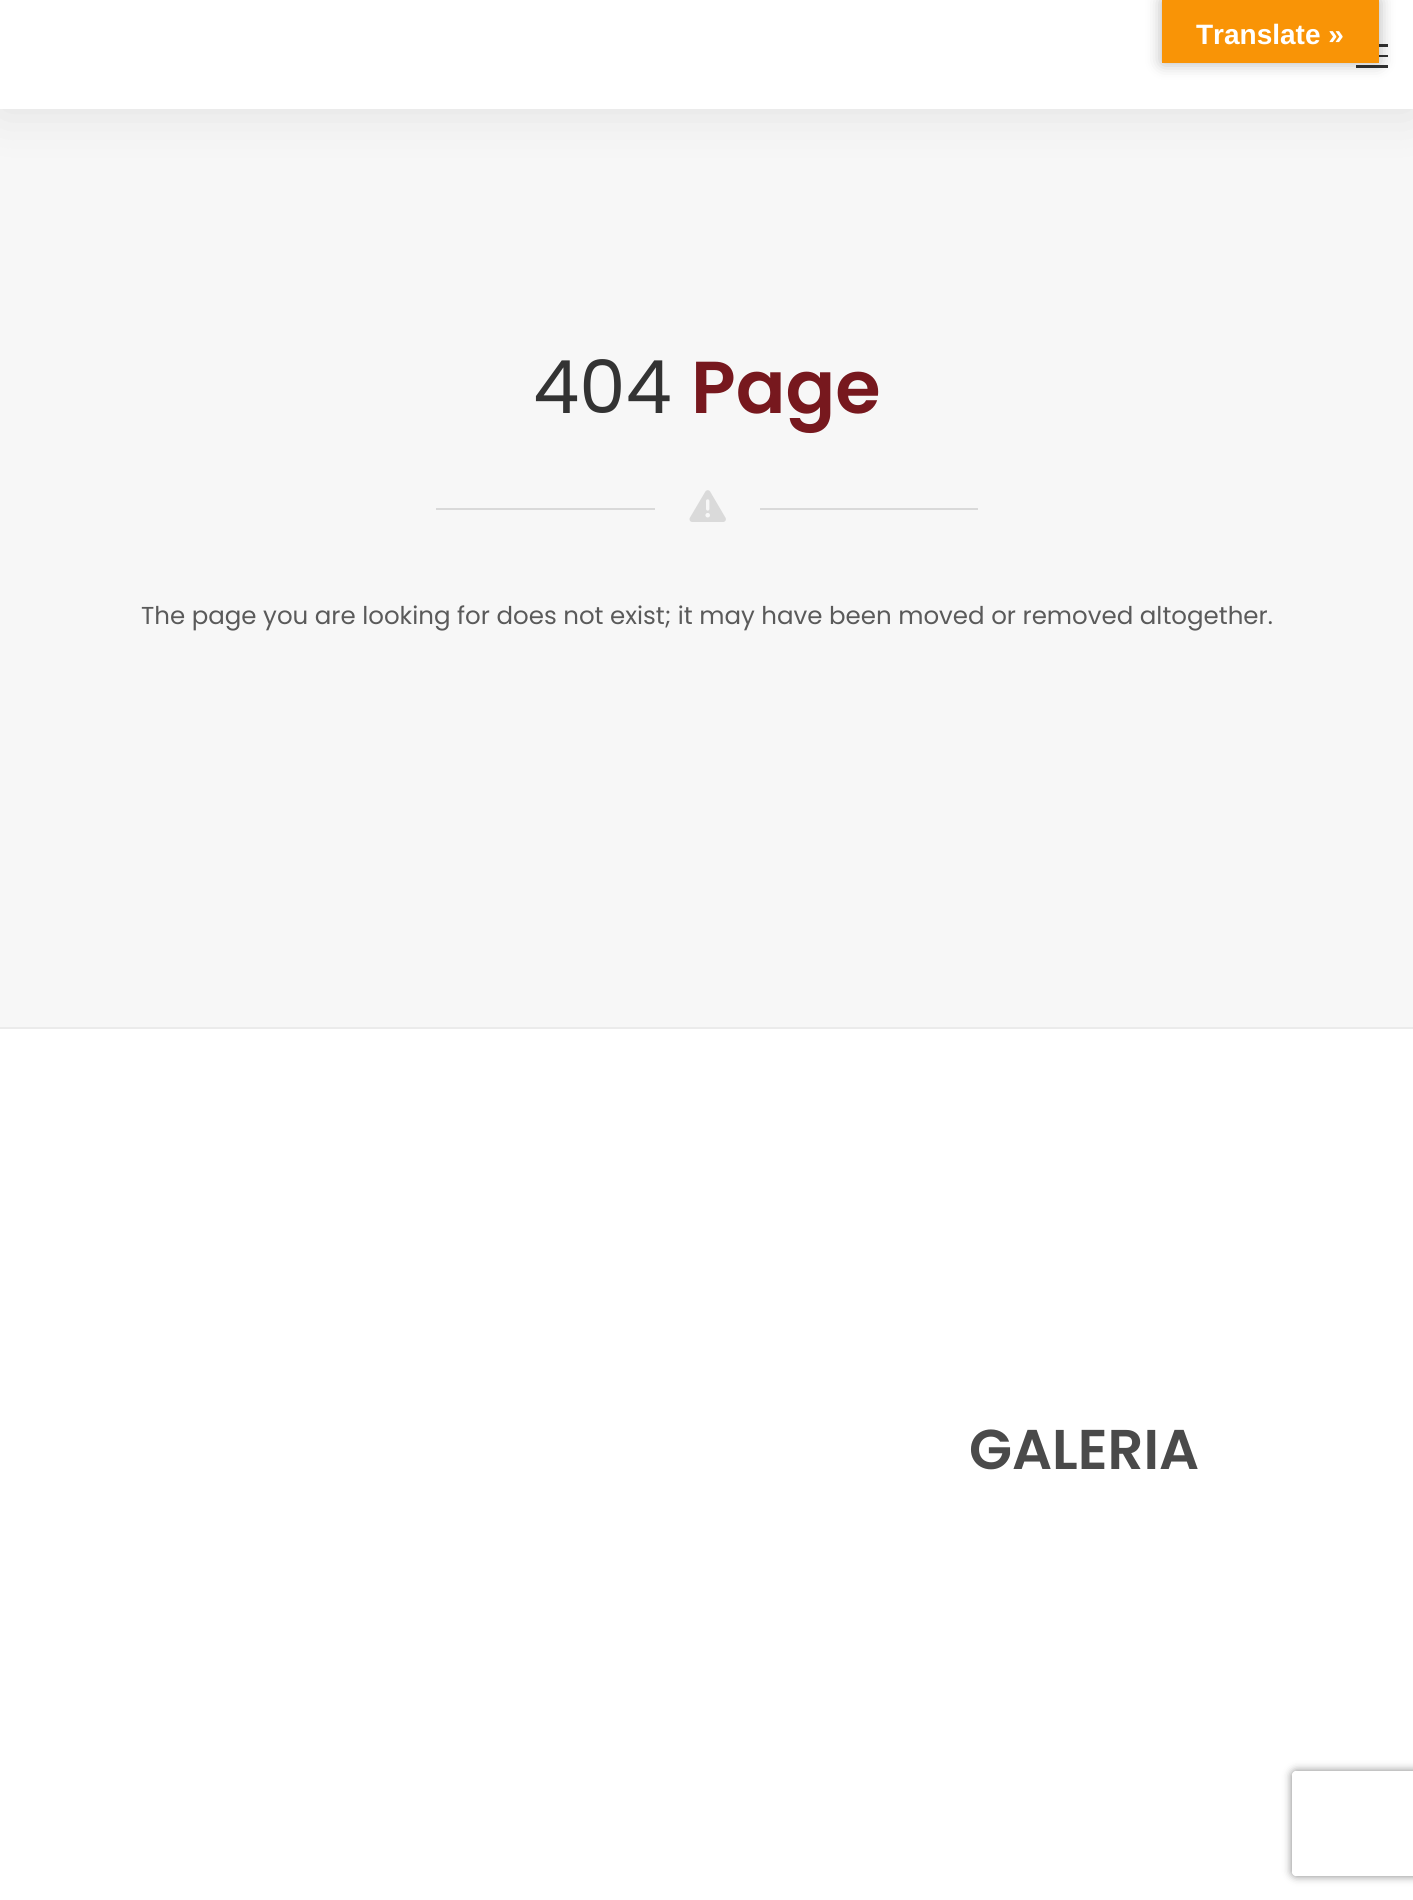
import math
import cairo


def round_path(ctx, x, y, w, h, r):
	ctx.new_sub_path()
	for i, (u, v) in enumerate([(x + w - r, y + h - r), (x + r, y + h - r), (x + r, y + r), (x + w - r, y + r)]):
		ctx.arc(u, v, r, i * math.pi / 2, (i + 1) * math.pi / 2)
	ctx.close_path()

def blur_box(ctx, x, y, w, h, r, blur, alpha):
	ctx.push_group_with_content(cairo.CONTENT_ALPHA)
	ctx.set_operator(cairo.OPERATOR_SOURCE)
	for i in range(15, -16, -2):
		e = blur * i / 6
		if min(w, h) + 2 * e > 0:
			ctx.set_source_rgba(0, 0, 0, alpha * math.erfc((i - 1) / 8.5) / 2)
			round_path(ctx, x - e, y - e, w + 2 * e, h + 2 * e, max(0, min(r + e + blur * .6, min(w, h) / 2 + e)))
			ctx.fill()
	ctx.mask(ctx.pop_group())

def paste(ctx, path, x, y, w, h):
	ctx.save()
	ctx.set_source_surface(cairo.ImageSurface.create_from_png(path), x, y)
	ctx.rectangle(x, y, w, h)
	ctx.fill()
	ctx.restore()

def draw(ctx):
	ctx.set_source_rgb(0.965, 0.965, 0.965)
	ctx.paint()
	ctx.set_source_rgb(0, 0, 0)
	blur_box(ctx, 0, 2, 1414, 108, 0, 26, 0.1)
	ctx.set_source_rgb(1, 1, 1)
	ctx.rectangle(0, 0, 1413, 109)
	ctx.fill()
	ctx.set_source_rgb(0.2, 0.2, 0.2)
	ctx.rectangle(1379, 44, 9, 3)
	ctx.rectangle(1379, 55, 9, 2)
	ctx.rectangle(1356, 65, 32, 3)
	ctx.fill()
	ctx.set_source_rgb(0, 0, 0)
	blur_box(ctx, 1162, 0, 217, 63, 0, 8, 0.3)
	ctx.set_source_rgb(0.973, 0.58, 0.024)
	ctx.rectangle(1162, 0, 217, 63)
	ctx.fill()
	ctx.select_font_face('Liberation Sans', cairo.FONT_SLANT_NORMAL, cairo.FONT_WEIGHT_BOLD)
	ctx.set_font_size(28)
	ctx.set_source_rgb(1, 1, 1)
	ctx.move_to(1196, 44)
	ctx.show_text('Translate »')
	ctx.select_font_face('Poppins')
	ctx.set_font_size(73.5)
	ctx.set_source_rgb(0.2, 0.2, 0.2)
	ctx.move_to(533, 413)
	ctx.show_text('404')
	ctx.select_font_face('Poppins SemiBold')
	ctx.set_source_rgb(0.467, 0.094, 0.118)
	ctx.move_to(691, 413)
	ctx.show_text('Page')
	ctx.set_source_rgb(0.851, 0.851, 0.851)
	ctx.rectangle(436, 508, 219, 2)
	ctx.fill()
	paste(ctx, 'media/1.png', 689, 490, 37, 32)
	ctx.rectangle(760, 508, 218, 2)
	ctx.fill()
	ctx.select_font_face('Poppins')
	ctx.set_font_size(24.5)
	ctx.set_source_rgb(0.353, 0.353, 0.353)
	ctx.move_to(141, 624)
	ctx.show_text('The page you are looking for does not exist; it may have been moved or removed altogether.')
	ctx.set_source_rgb(1, 1, 1)
	ctx.rectangle(0, 1029, 1413, 871)
	ctx.fill()
	ctx.set_source_rgb(0.918, 0.918, 0.918)
	ctx.rectangle(0, 1027, 1413, 2)
	ctx.fill()
	ctx.select_font_face('Poppins SemiBold')
	ctx.set_font_size(56)
	ctx.set_source_rgb(0.29, 0.29, 0.29)
	ctx.move_to(969, 1469)
	ctx.show_text('GALERIA')
	ctx.save()
	ctx.set_fill_rule(cairo.FILL_RULE_EVEN_ODD)
	ctx.new_path()
	ctx.move_to(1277, 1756)
	ctx.line_to(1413, 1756)
	ctx.line_to(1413, 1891)
	ctx.line_to(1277, 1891)
	ctx.close_path()
	ctx.move_to(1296, 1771)
	ctx.line_to(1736, 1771)
	ctx.curve_to(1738, 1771, 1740, 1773, 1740, 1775)
	ctx.line_to(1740, 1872)
	ctx.curve_to(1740, 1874, 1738, 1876, 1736, 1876)
	ctx.line_to(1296, 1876)
	ctx.curve_to(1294, 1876, 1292, 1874, 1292, 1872)
	ctx.line_to(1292, 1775)
	ctx.curve_to(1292, 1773, 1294, 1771, 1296, 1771)
	ctx.close_path()
	ctx.clip()
	ctx.set_source_rgb(0.502, 0.502, 0.502)
	blur_box(ctx, 1292, 1771, 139, 105, 4, 4.5, 1)
	ctx.restore()


surface = cairo.ImageSurface(cairo.FORMAT_RGB24, 1413, 1900)
ctx = cairo.Context(surface)
options = cairo.FontOptions()
options.set_hint_metrics(cairo.HINT_METRICS_OFF)
options.set_hint_style(cairo.HINT_STYLE_NONE)
ctx.set_font_options(options)
ctx.set_miter_limit(4)
draw(ctx)
surface.write_to_png('image.png')
